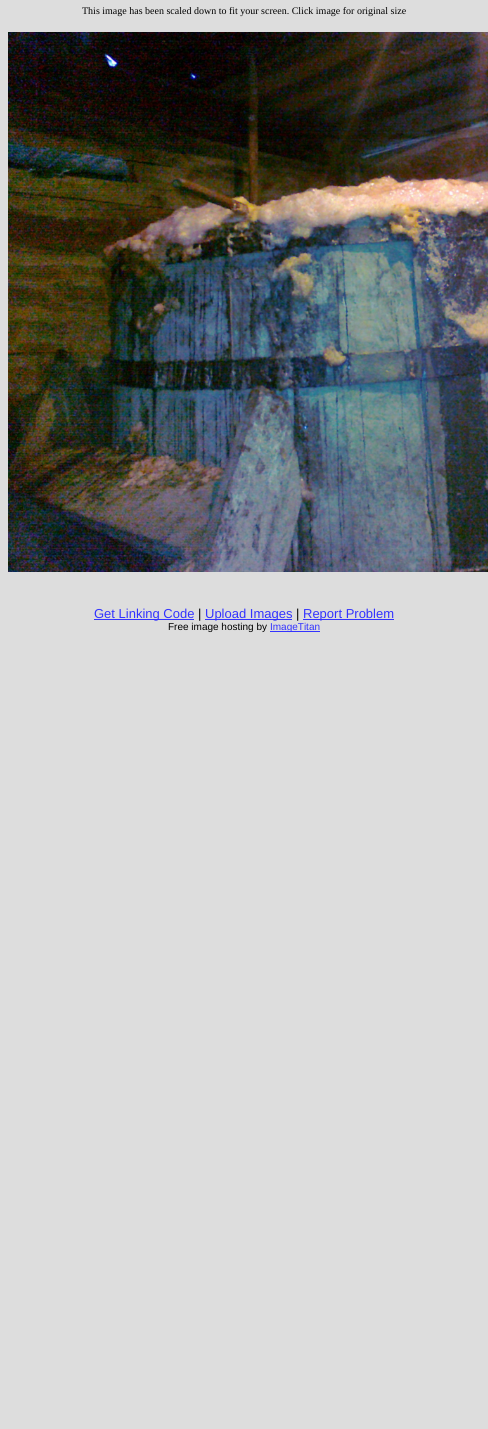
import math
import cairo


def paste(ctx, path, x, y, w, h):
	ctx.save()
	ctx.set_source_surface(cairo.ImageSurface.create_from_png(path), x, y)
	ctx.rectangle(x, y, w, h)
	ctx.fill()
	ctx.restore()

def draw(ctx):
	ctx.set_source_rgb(0.867, 0.867, 0.867)
	ctx.paint()
	ctx.select_font_face('Liberation Serif')
	ctx.set_font_size(10)
	ctx.set_source_rgb(0, 0, 0)
	ctx.move_to(82, 14)
	ctx.show_text('This image has been scaled down to fit your screen. Click image for original size')
	paste(ctx, 'media/1.png', 8, 32, 480, 540)
	ctx.set_source_rgb(0.2, 0.2, 1)
	ctx.rectangle(94, 619, 100, 1)
	ctx.fill()
	ctx.select_font_face('Liberation Sans')
	ctx.set_font_size(13)
	ctx.move_to(94, 618)
	ctx.show_text('Get Linking Code')
	ctx.set_source_rgb(0, 0, 0)
	ctx.move_to(198, 618)
	ctx.show_text('|')
	ctx.set_source_rgb(0.2, 0.2, 1)
	ctx.rectangle(205, 619, 87, 1)
	ctx.fill()
	ctx.move_to(205, 618)
	ctx.show_text('Upload Images')
	ctx.set_source_rgb(0, 0, 0)
	ctx.move_to(296, 618)
	ctx.show_text('|')
	ctx.set_source_rgb(0.2, 0.2, 1)
	ctx.rectangle(303, 619, 91, 1)
	ctx.fill()
	ctx.move_to(303, 618)
	ctx.show_text('Report Problem')
	ctx.set_font_size(10)
	ctx.set_source_rgb(0, 0, 0)
	ctx.move_to(168, 630)
	ctx.show_text('Free image hosting by')
	ctx.set_source_rgb(0.2, 0.2, 1)
	ctx.rectangle(270, 631, 50, 1)
	ctx.fill()
	ctx.move_to(270, 630)
	ctx.show_text('ImageTitan')


surface = cairo.ImageSurface(cairo.FORMAT_RGB24, 488, 1429)
ctx = cairo.Context(surface)
options = cairo.FontOptions()
options.set_hint_metrics(cairo.HINT_METRICS_OFF)
options.set_hint_style(cairo.HINT_STYLE_NONE)
ctx.set_font_options(options)
ctx.set_miter_limit(4)
draw(ctx)
surface.write_to_png('image.png')
